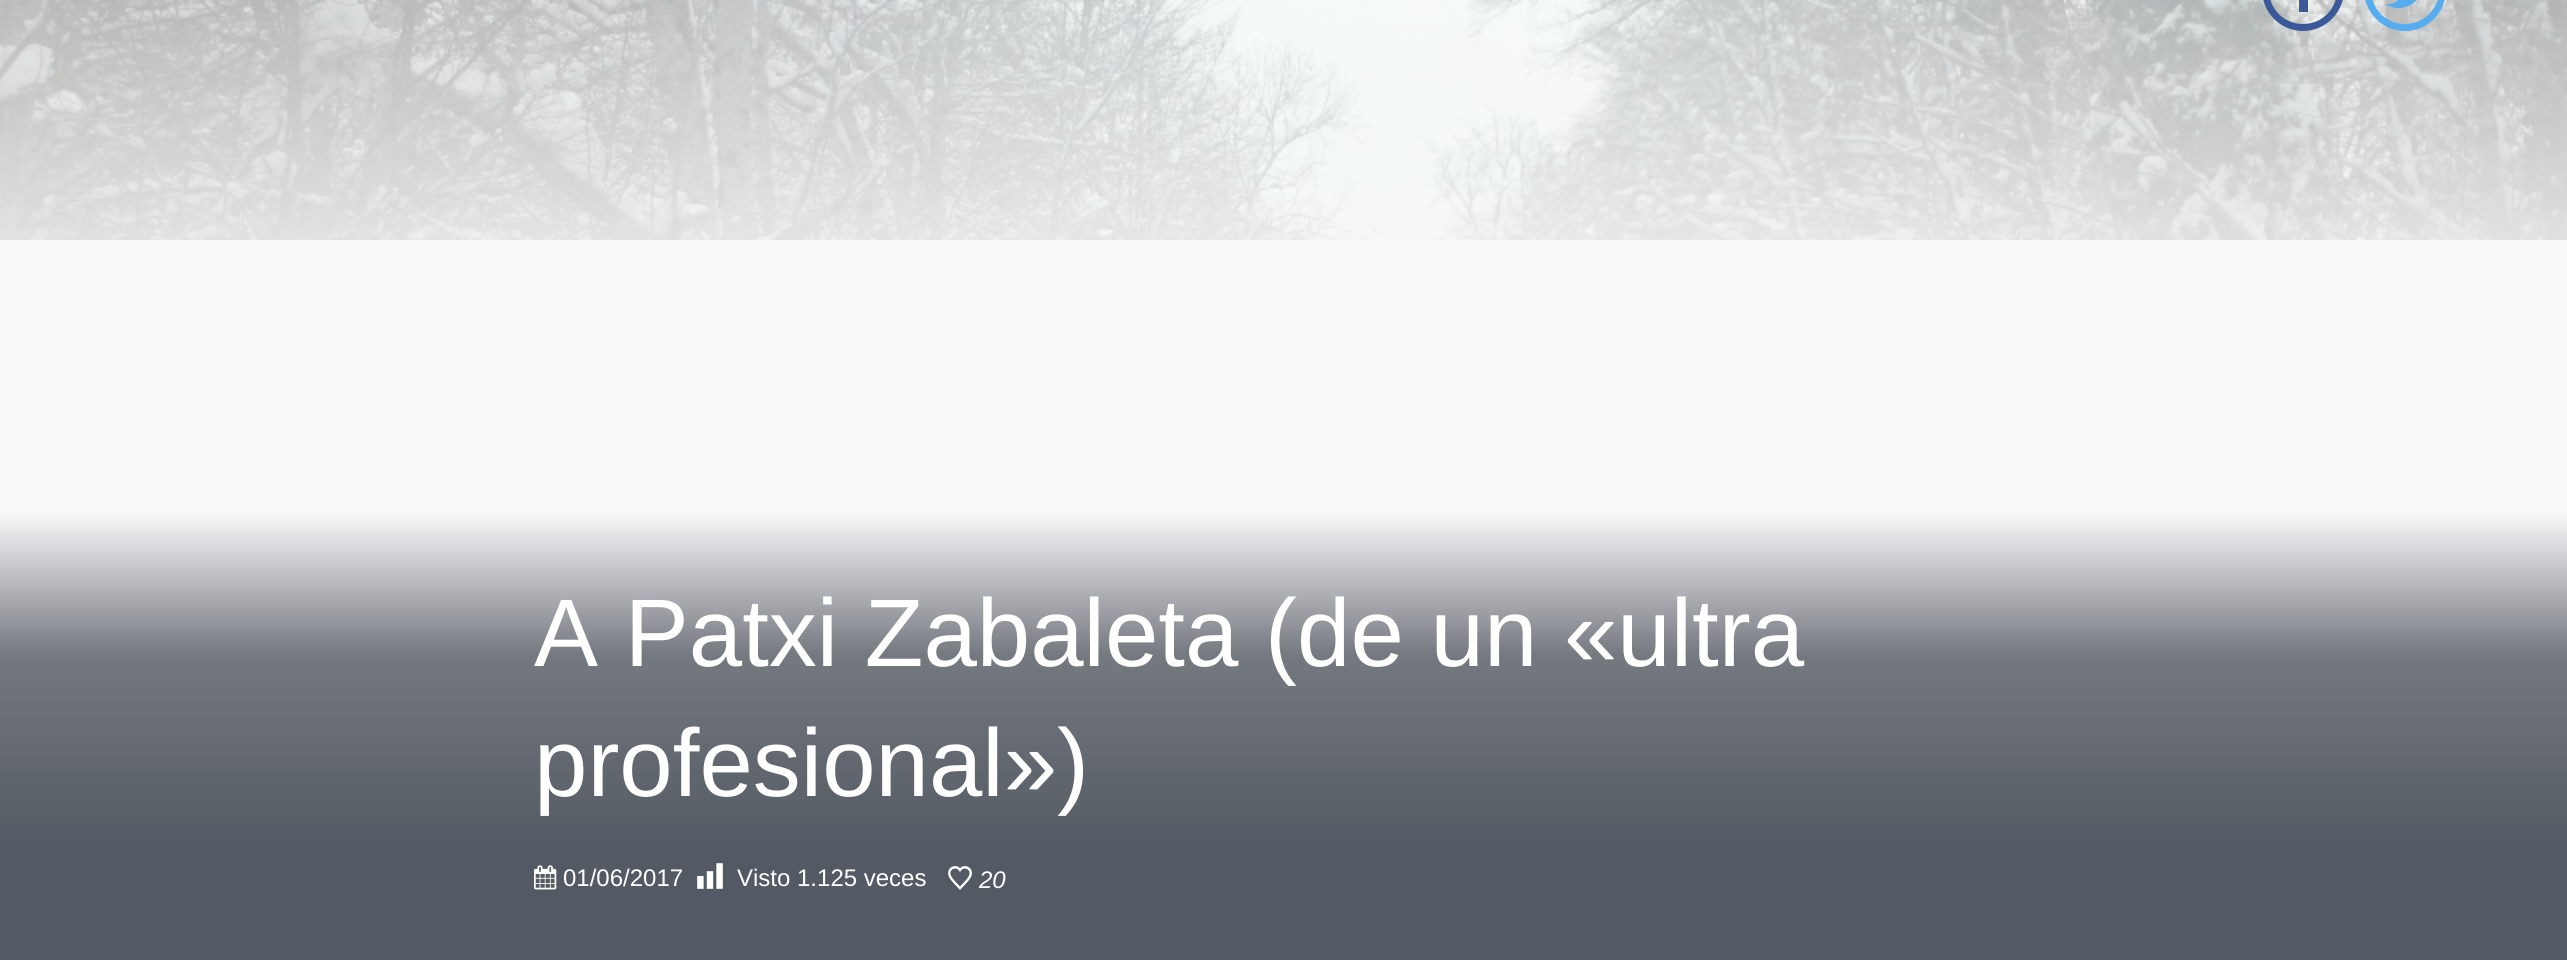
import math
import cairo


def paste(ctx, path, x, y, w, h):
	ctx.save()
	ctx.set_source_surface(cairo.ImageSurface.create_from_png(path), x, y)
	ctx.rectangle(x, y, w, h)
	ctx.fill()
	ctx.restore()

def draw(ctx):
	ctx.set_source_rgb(0.973, 0.976, 0.98)
	ctx.paint()
	paste(ctx, 'media/1.png', 0, 0, 2567, 240)
	ctx.set_source_rgb(0.231, 0.349, 0.596)
	ctx.new_path()
	ctx.move_to(2303, -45)
	ctx.curve_to(2322, -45, 2337, -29, 2337, -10)
	ctx.curve_to(2337, 9, 2322, 24, 2303, 24)
	ctx.curve_to(2284, 24, 2269, 9, 2269, -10)
	ctx.curve_to(2269, -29, 2284, -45, 2303, -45)
	ctx.close_path()
	ctx.move_to(2344, -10)
	ctx.curve_to(2344, -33, 2326, -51, 2303, -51)
	ctx.curve_to(2280, -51, 2262, -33, 2262, -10)
	ctx.curve_to(2262, 12, 2280, 31, 2303, 31)
	ctx.curve_to(2326, 31, 2344, 12, 2344, -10)
	ctx.close_path()
	ctx.fill()
	ctx.rectangle(2299, 0, 9, 12)
	ctx.fill()
	ctx.set_source_rgb(0.333, 0.675, 0.933)
	ctx.new_path()
	ctx.move_to(2405, -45)
	ctx.curve_to(2424, -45, 2439, -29, 2439, -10)
	ctx.curve_to(2439, 9, 2424, 24, 2405, 24)
	ctx.curve_to(2386, 24, 2371, 9, 2371, -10)
	ctx.curve_to(2371, -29, 2386, -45, 2405, -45)
	ctx.close_path()
	ctx.move_to(2446, -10)
	ctx.curve_to(2446, -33, 2428, -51, 2405, -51)
	ctx.curve_to(2382, -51, 2364, -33, 2364, -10)
	ctx.curve_to(2364, 12, 2382, 31, 2405, 31)
	ctx.curve_to(2428, 31, 2446, 12, 2446, -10)
	ctx.close_path()
	ctx.fill()
	paste(ctx, 'media/2.png', 2385, 0, 32, 8)
	gradient = cairo.LinearGradient(1284, 508, 1284, 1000)
	gradient.add_color_stop_rgba(0, 0.988, 0.988, 0.992, 1)
	gradient.add_color_stop_rgba(0.3, 0.455, 0.471, 0.498, 1)
	gradient.add_color_stop_rgba(0.7, 0.329, 0.353, 0.388, 1)
	gradient.add_color_stop_rgba(1, 0.329, 0.353, 0.388, 1)
	ctx.set_source(gradient)
	ctx.rectangle(0, 508, 2567, 452)
	ctx.fill()
	ctx.select_font_face('Liberation Sans')
	ctx.set_font_size(96)
	ctx.set_source_rgb(1, 1, 1)
	ctx.move_to(534, 666)
	ctx.show_text('A Patxi Zabaleta (de un «ultra')
	ctx.move_to(534, 796)
	ctx.show_text('profesional»)')
	paste(ctx, 'media/3.png', 534, 865, 23, 25)
	ctx.set_font_size(24)
	ctx.move_to(563, 886)
	ctx.show_text('01/06/2017')
	paste(ctx, 'media/4.png', 697, 863, 26, 26)
	ctx.move_to(737, 886)
	ctx.show_text('Visto 1.125 veces')
	paste(ctx, 'media/5.png', 948, 866, 24, 24)
	ctx.select_font_face('Liberation Sans', cairo.FONT_SLANT_ITALIC)
	ctx.move_to(979, 888)
	ctx.show_text('20')


surface = cairo.ImageSurface(cairo.FORMAT_RGB24, 2567, 960)
ctx = cairo.Context(surface)
options = cairo.FontOptions()
options.set_hint_metrics(cairo.HINT_METRICS_OFF)
options.set_hint_style(cairo.HINT_STYLE_NONE)
ctx.set_font_options(options)
ctx.set_miter_limit(4)
draw(ctx)
surface.write_to_png('image.png')
